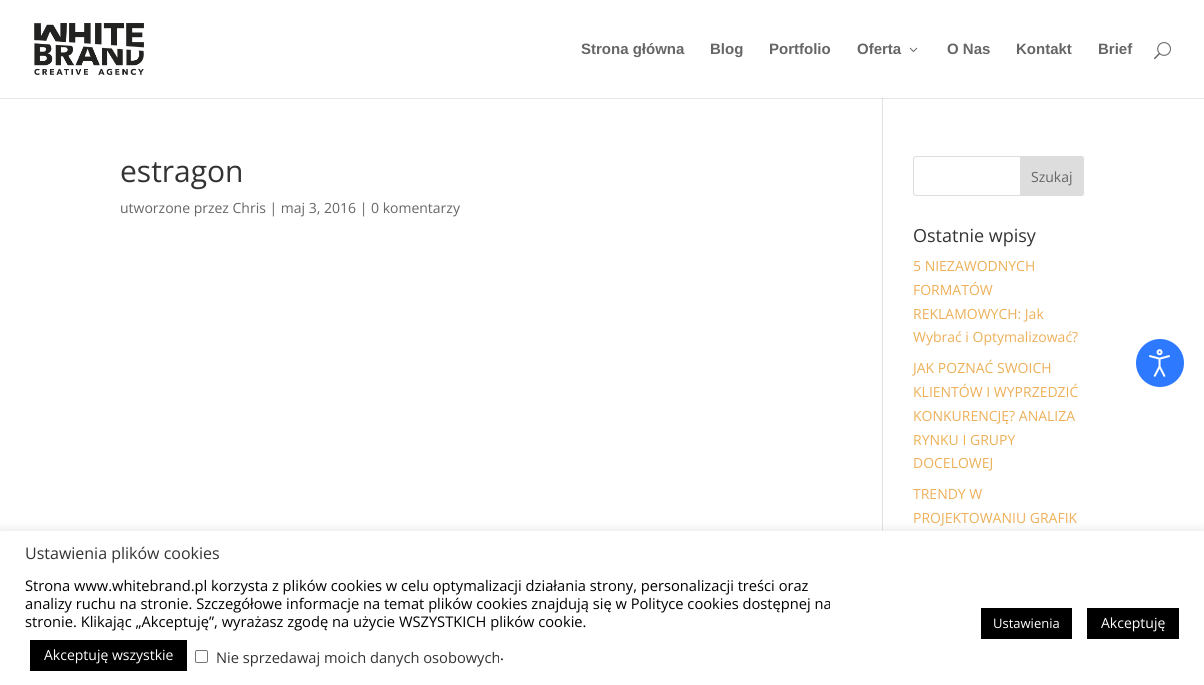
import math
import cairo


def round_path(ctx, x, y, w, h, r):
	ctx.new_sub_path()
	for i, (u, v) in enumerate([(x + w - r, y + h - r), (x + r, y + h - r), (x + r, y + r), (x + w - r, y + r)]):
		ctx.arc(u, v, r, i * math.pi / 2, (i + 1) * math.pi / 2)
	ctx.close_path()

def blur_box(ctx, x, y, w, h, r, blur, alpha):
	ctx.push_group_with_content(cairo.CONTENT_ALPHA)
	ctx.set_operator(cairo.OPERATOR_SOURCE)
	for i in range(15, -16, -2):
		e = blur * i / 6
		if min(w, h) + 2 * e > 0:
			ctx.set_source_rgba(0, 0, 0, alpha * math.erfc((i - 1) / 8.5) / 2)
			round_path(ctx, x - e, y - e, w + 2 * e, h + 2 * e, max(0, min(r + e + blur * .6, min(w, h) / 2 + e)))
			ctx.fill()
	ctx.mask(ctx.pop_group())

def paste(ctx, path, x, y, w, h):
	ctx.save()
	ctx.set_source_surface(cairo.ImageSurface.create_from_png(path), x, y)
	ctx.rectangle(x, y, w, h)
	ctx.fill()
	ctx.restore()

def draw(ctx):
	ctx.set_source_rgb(1, 1, 1)
	ctx.paint()
	ctx.set_source_rgb(0.902, 0.902, 0.902)
	ctx.rectangle(0, 98, 1204, 1)
	ctx.fill()
	paste(ctx, 'media/1.png', 34, 23, 110, 52)
	ctx.select_font_face('Liberation Sans', cairo.FONT_SLANT_NORMAL, cairo.FONT_WEIGHT_BOLD)
	ctx.set_font_size(15)
	ctx.set_source_rgb(0.4, 0.4, 0.4)
	for x, y, s in [
		(581, 54, 'Strona główna'),
		(710, 54, 'Blog'),
		(769, 54, 'Portfolio'),
		(857, 54, 'Oferta'),
	]:
		ctx.move_to(x, y)
		ctx.show_text(s)
	paste(ctx, 'media/2.png', 909, 47, 9, 5)
	for x, y, s in [
		(947, 54, 'O Nas'),
		(1016, 54, 'Kontakt'),
		(1098, 54, 'Brief'),
	]:
		ctx.move_to(x, y)
		ctx.show_text(s)
	paste(ctx, 'media/3.png', 1154, 42, 17, 18)
	ctx.set_source_rgb(0.886, 0.886, 0.886)
	ctx.rectangle(882, 98, 1, 433)
	ctx.fill()
	ctx.set_source_rgb(0.796, 0.796, 0.796)
	ctx.rectangle(882, 98, 1, 1)
	ctx.fill()
	ctx.select_font_face('Open Sans')
	ctx.set_font_size(30)
	ctx.set_source_rgb(0.2, 0.2, 0.2)
	ctx.move_to(120, 182)
	ctx.show_text('estragon')
	ctx.set_font_size(14)
	ctx.set_source_rgb(0.4, 0.4, 0.4)
	ctx.move_to(120, 213)
	ctx.show_text('utworzone przez Chris | maj 3, 2016 | 0 komentarzy')
	round_path(ctx, 913.5, 156.5, 170, 39, 2.5)
	ctx.set_source_rgb(0.867, 0.867, 0.867)
	ctx.set_line_width(1)
	ctx.stroke()
	ctx.new_path()
	ctx.move_to(1020.5, 156.5)
	ctx.line_to(1081, 156.5)
	ctx.curve_to(1082.5, 156.5, 1083.5, 157.5, 1083.5, 159)
	ctx.line_to(1083.5, 193)
	ctx.curve_to(1083.5, 194.5, 1082.5, 195.5, 1081, 195.5)
	ctx.line_to(1020.5, 195.5)
	ctx.close_path()
	ctx.fill_preserve()
	ctx.stroke()
	ctx.set_source_rgb(0.4, 0.4, 0.4)
	ctx.move_to(1031, 182)
	ctx.show_text('Szukaj')
	ctx.set_font_size(18)
	ctx.set_source_rgb(0.2, 0.2, 0.2)
	ctx.move_to(913, 242)
	ctx.show_text('Ostatnie wpisy')
	ctx.set_font_size(14)
	ctx.set_source_rgb(0.929, 0.69, 0.349)
	for x, y, s in [
		(913, 271, '5 NIEZAWODNYCH'),
		(913, 295, 'FORMATÓW'),
		(913, 319, 'REKLAMOWYCH: Jak'),
		(913, 342, 'Wybrać i Optymalizować?'),
		(913, 373, 'JAK POZNAĆ SWOICH'),
		(913, 397, 'KLIENTÓW I WYPRZEDZIĆ'),
		(913, 421, 'KONKURENCJĘ? ANALIZA'),
		(913, 445, 'RYNKU I GRUPY'),
		(913, 468, 'DOCELOWEJ'),
		(913, 499, 'TRENDY W'),
		(913, 523, 'PROJEKTOWANIU GRAFIK'),
	]:
		ctx.move_to(x, y)
		ctx.show_text(s)
	ctx.set_source_rgb(0.176, 0.475, 1)
	ctx.new_path()
	ctx.arc(1160, 363, 24, 0, 2 * math.pi)
	ctx.fill()
	paste(ctx, 'media/4.png', 1149, 349, 21, 28)
	ctx.set_source_rgb(0.675, 0.671, 0.671)
	blur_box(ctx, 0, 530, 1204, 154, 0, 5, 0.3)
	ctx.set_source_rgb(1, 1, 1)
	ctx.rectangle(0, 531, 1204, 154)
	ctx.fill()
	ctx.set_font_size(16)
	ctx.set_source_rgb(0.2, 0.2, 0.2)
	ctx.move_to(25, 559)
	ctx.show_text('Ustawienia plików cookies')
	ctx.set_font_size(14.67)
	ctx.set_source_rgb(0, 0, 0)
	for x, y, s in [
		(25, 591, 'Strona www.whitebrand.pl korzysta z plików cookies w celu optymalizacji działania strony, personalizacji treści oraz'),
		(25, 609, 'analizy ruchu na stronie. Szczegółowe informacje na temat plików cookies znajdują się w Polityce cookies dostępnej na'),
		(25, 627, 'stronie. Klikając „Akceptuję”, wyrażasz zgodę na użycie WSZYSTKICH plików cookie.'),
	]:
		ctx.move_to(x, y)
		ctx.show_text(s)
	ctx.rectangle(30, 640, 157, 31)
	ctx.fill()
	ctx.set_font_size(14)
	ctx.set_source_rgb(1, 1, 1)
	ctx.move_to(44, 660)
	ctx.show_text('Akceptuję wszystkie')
	round_path(ctx, 195.5, 650.5, 12, 12, 1.5)
	ctx.set_source_rgb(0.463, 0.463, 0.463)
	ctx.stroke()
	ctx.set_font_size(14.67)
	ctx.set_source_rgb(0.2, 0.2, 0.2)
	ctx.move_to(216, 663)
	ctx.show_text('Nie sprzedawaj moich danych osobowych')
	ctx.set_source_rgb(0, 0, 0)
	ctx.move_to(500, 660)
	ctx.show_text('.')
	ctx.rectangle(981, 608, 91, 31)
	ctx.fill()
	ctx.set_font_size(13)
	ctx.set_source_rgb(1, 1, 1)
	ctx.move_to(993, 628)
	ctx.show_text('Ustawienia')
	ctx.set_source_rgb(0, 0, 0)
	ctx.rectangle(1087, 608, 92, 31)
	ctx.fill()
	ctx.set_font_size(14)
	ctx.set_source_rgb(1, 1, 1)
	ctx.move_to(1101, 628)
	ctx.show_text('Akceptuję')


surface = cairo.ImageSurface(cairo.FORMAT_RGB24, 1204, 685)
ctx = cairo.Context(surface)
options = cairo.FontOptions()
options.set_hint_metrics(cairo.HINT_METRICS_OFF)
options.set_hint_style(cairo.HINT_STYLE_NONE)
ctx.set_font_options(options)
ctx.set_miter_limit(4)
draw(ctx)
surface.write_to_png('image.png')
